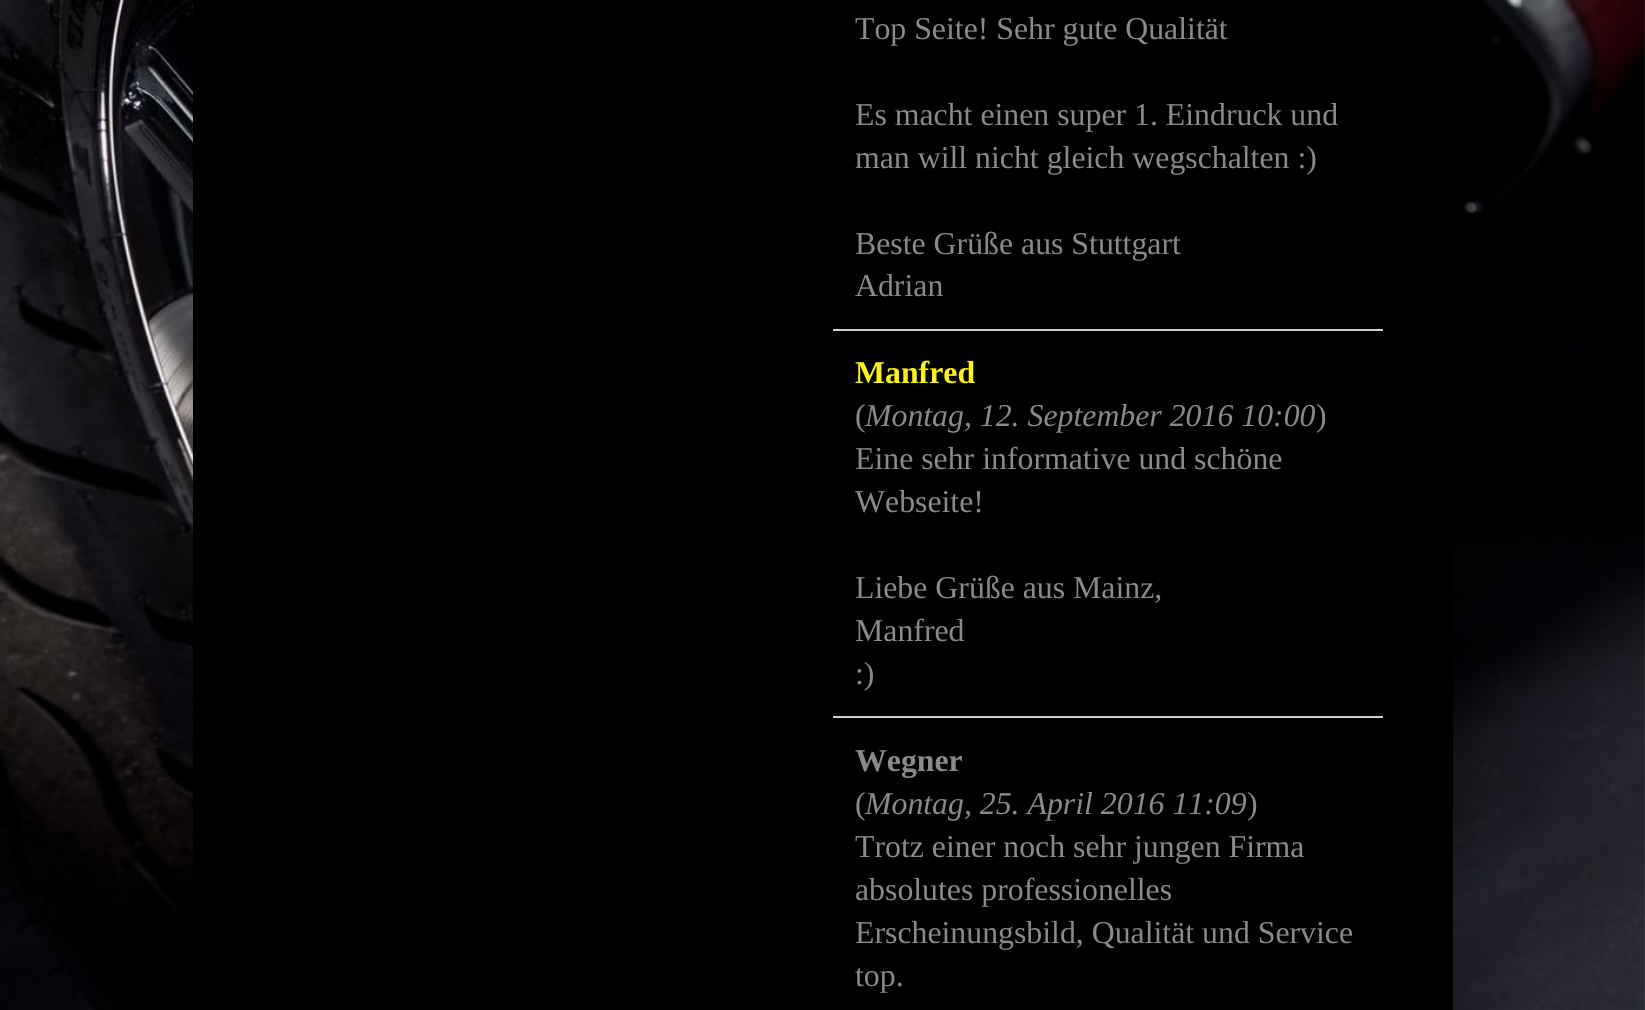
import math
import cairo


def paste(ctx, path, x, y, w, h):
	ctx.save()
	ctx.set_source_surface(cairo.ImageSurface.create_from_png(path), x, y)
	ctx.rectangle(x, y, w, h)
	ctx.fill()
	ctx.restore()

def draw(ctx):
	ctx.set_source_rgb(1, 1, 1)
	ctx.paint()
	paste(ctx, 'media/1.png', 0, 0, 1645, 1010)
	ctx.set_source_rgb(0, 0, 0)
	ctx.rectangle(193, 0, 1260, 1010)
	ctx.fill()
	ctx.select_font_face('Liberation Serif')
	ctx.set_font_size(31.8)
	ctx.set_source_rgb(0.541, 0.541, 0.541)
	for x, y, s in [
		(855, 39, 'Top Seite! Sehr gute Qualität'),
		(855, 125, 'Es macht einen super 1. Eindruck und'),
		(855, 168, 'man will nicht gleich wegschalten :)'),
		(855, 254, 'Beste Grüße aus Stuttgart'),
		(855, 296, 'Adrian'),
	]:
		ctx.move_to(x, y)
		ctx.show_text(s)
	ctx.set_source_rgb(0.8, 0.8, 0.8)
	ctx.rectangle(833, 329, 550, 2)
	ctx.fill()
	ctx.select_font_face('Liberation Serif', cairo.FONT_SLANT_NORMAL, cairo.FONT_WEIGHT_BOLD)
	ctx.set_source_rgb(1, 0.961, 0.024)
	ctx.move_to(855, 383)
	ctx.show_text('Manfred')
	ctx.select_font_face('Liberation Serif')
	ctx.set_source_rgb(0.541, 0.541, 0.541)
	ctx.move_to(855, 426)
	ctx.show_text('(')
	ctx.select_font_face('Liberation Serif', cairo.FONT_SLANT_ITALIC)
	ctx.move_to(865, 426)
	ctx.show_text('Montag, 12. September 2016 10:00')
	ctx.select_font_face('Liberation Serif')
	for x, y, s in [
		(1316, 426, ')'),
		(855, 469, 'Eine sehr informative und schöne'),
		(855, 512, 'Webseite!'),
		(855, 598, 'Liebe Grüße aus Mainz,'),
		(855, 641, 'Manfred'),
		(855, 684, ':)'),
	]:
		ctx.move_to(x, y)
		ctx.show_text(s)
	ctx.set_source_rgb(0.8, 0.8, 0.8)
	ctx.rectangle(833, 716, 550, 2)
	ctx.fill()
	ctx.select_font_face('Liberation Serif', cairo.FONT_SLANT_NORMAL, cairo.FONT_WEIGHT_BOLD)
	ctx.set_source_rgb(0.541, 0.541, 0.541)
	ctx.move_to(855, 771)
	ctx.show_text('Wegner')
	ctx.select_font_face('Liberation Serif')
	ctx.move_to(855, 814)
	ctx.show_text('(')
	ctx.select_font_face('Liberation Serif', cairo.FONT_SLANT_ITALIC)
	ctx.move_to(865, 814)
	ctx.show_text('Montag, 25. April 2016 11:09')
	ctx.select_font_face('Liberation Serif')
	for x, y, s in [
		(1247, 814, ')'),
		(855, 857, 'Trotz einer noch sehr jungen Firma'),
		(855, 900, 'absolutes professionelles'),
		(855, 943, 'Erscheinungsbild, Qualität und Service'),
		(855, 986, 'top.'),
	]:
		ctx.move_to(x, y)
		ctx.show_text(s)


surface = cairo.ImageSurface(cairo.FORMAT_RGB24, 1645, 1010)
ctx = cairo.Context(surface)
options = cairo.FontOptions()
options.set_hint_metrics(cairo.HINT_METRICS_OFF)
options.set_hint_style(cairo.HINT_STYLE_NONE)
ctx.set_font_options(options)
ctx.set_miter_limit(4)
draw(ctx)
surface.write_to_png('image.png')
